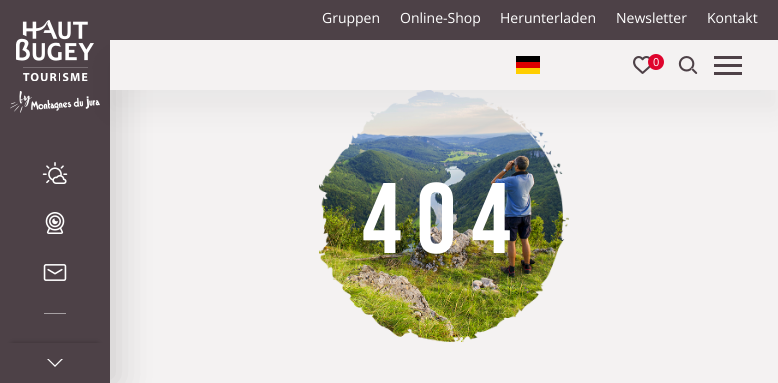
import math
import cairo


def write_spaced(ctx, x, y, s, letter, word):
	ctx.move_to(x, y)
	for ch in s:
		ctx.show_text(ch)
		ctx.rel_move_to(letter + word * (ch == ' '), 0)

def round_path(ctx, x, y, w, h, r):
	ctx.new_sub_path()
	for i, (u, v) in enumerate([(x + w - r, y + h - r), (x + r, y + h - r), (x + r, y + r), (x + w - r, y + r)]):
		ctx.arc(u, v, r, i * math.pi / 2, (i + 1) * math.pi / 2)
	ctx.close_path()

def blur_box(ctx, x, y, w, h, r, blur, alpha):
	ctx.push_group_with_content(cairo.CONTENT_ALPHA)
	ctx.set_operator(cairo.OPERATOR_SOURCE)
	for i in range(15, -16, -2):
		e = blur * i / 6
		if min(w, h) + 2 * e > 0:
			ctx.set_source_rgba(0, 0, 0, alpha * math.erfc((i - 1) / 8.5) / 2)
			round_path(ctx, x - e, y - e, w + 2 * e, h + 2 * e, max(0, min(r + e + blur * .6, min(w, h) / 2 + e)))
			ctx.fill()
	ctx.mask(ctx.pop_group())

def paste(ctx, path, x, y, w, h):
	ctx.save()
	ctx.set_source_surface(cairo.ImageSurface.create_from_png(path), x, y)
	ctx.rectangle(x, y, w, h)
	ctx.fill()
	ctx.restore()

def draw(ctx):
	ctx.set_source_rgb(0.957, 0.949, 0.949)
	ctx.paint()
	ctx.set_source_rgb(0, 0, 0)
	blur_box(ctx, 9, 0, 110, 383, 0, 18.5, 0.15)
	ctx.set_source_rgb(0.302, 0.255, 0.278)
	ctx.rectangle(0, 0, 110, 343)
	ctx.fill()
	paste(ctx, 'media/1.png', 16, 20, 78, 61)
	paste(ctx, 'media/2.png', 10, 91, 90, 22)
	paste(ctx, 'media/3.png', 42, 162, 26, 22)
	paste(ctx, 'media/4.png', 45, 212, 20, 22)
	paste(ctx, 'media/5.png', 43, 264, 24, 17)
	ctx.set_source_rgb(0.651, 0.627, 0.639)
	ctx.rectangle(44, 313, 22, 1)
	ctx.fill()
	ctx.set_source_rgb(0, 0, 0)
	blur_box(ctx, 10, 343, 90, 10, 5, 2.5, 0.25)
	ctx.set_source_rgb(0.302, 0.255, 0.278)
	ctx.rectangle(0, 343, 110, 40)
	ctx.fill()
	paste(ctx, 'media/6.png', 47, 359, 16, 8)
	ctx.rectangle(110, 0, 668, 40)
	ctx.fill()
	ctx.select_font_face('Open Sans')
	ctx.set_font_size(14)
	ctx.set_source_rgb(1, 1, 1)
	for x, y, s in [
		(322, 23, 'Gruppen'),
		(400, 23, 'Online-Shop'),
		(500, 23, 'Herunterladen'),
		(616, 23, 'Newsletter'),
		(707, 23, 'Kontakt'),
	]:
		ctx.move_to(x, y)
		ctx.show_text(s)
	paste(ctx, 'media/9.png', 319, 90, 250, 252)
	ctx.set_source_rgb(0, 0, 0)
	blur_box(ctx, 110, 60, 668, 50, 0, 15, 0.05)
	ctx.set_source_rgb(0.957, 0.949, 0.949)
	ctx.rectangle(110, 40, 668, 50)
	ctx.fill()
	ctx.set_source_rgb(1, 0.808, 0)
	ctx.rectangle(516, 68, 24, 6)
	ctx.fill()
	ctx.set_source_rgb(0, 0, 0)
	ctx.rectangle(516, 56, 24, 6)
	ctx.fill()
	ctx.set_source_rgb(0.867, 0, 0)
	ctx.rectangle(516, 62, 24, 6)
	ctx.fill()
	paste(ctx, 'media/7.png', 633, 56, 18, 18)
	ctx.set_source_rgb(0.875, 0.016, 0.176)
	ctx.arc(656, 62, 8, 0, 2 * math.pi)
	ctx.fill()
	ctx.set_font_size(11)
	ctx.set_source_rgb(1, 1, 1)
	ctx.move_to(653, 66)
	ctx.show_text('0')
	paste(ctx, 'media/8.png', 678, 56, 20, 18)
	ctx.set_source_rgb(0.302, 0.255, 0.278)
	ctx.rectangle(714, 64, 28, 3)
	ctx.rectangle(714, 56, 28, 3)
	ctx.rectangle(714, 72, 28, 3)
	ctx.fill()
	ctx.select_font_face('Bebas Neue')
	ctx.set_font_size(100)
	ctx.set_source_rgb(1, 1, 1)
	write_spaced(ctx, 362, 253, '404', 15, 0)


surface = cairo.ImageSurface(cairo.FORMAT_RGB24, 778, 383)
ctx = cairo.Context(surface)
options = cairo.FontOptions()
options.set_hint_metrics(cairo.HINT_METRICS_OFF)
options.set_hint_style(cairo.HINT_STYLE_NONE)
ctx.set_font_options(options)
ctx.set_miter_limit(4)
draw(ctx)
surface.write_to_png('image.png')
